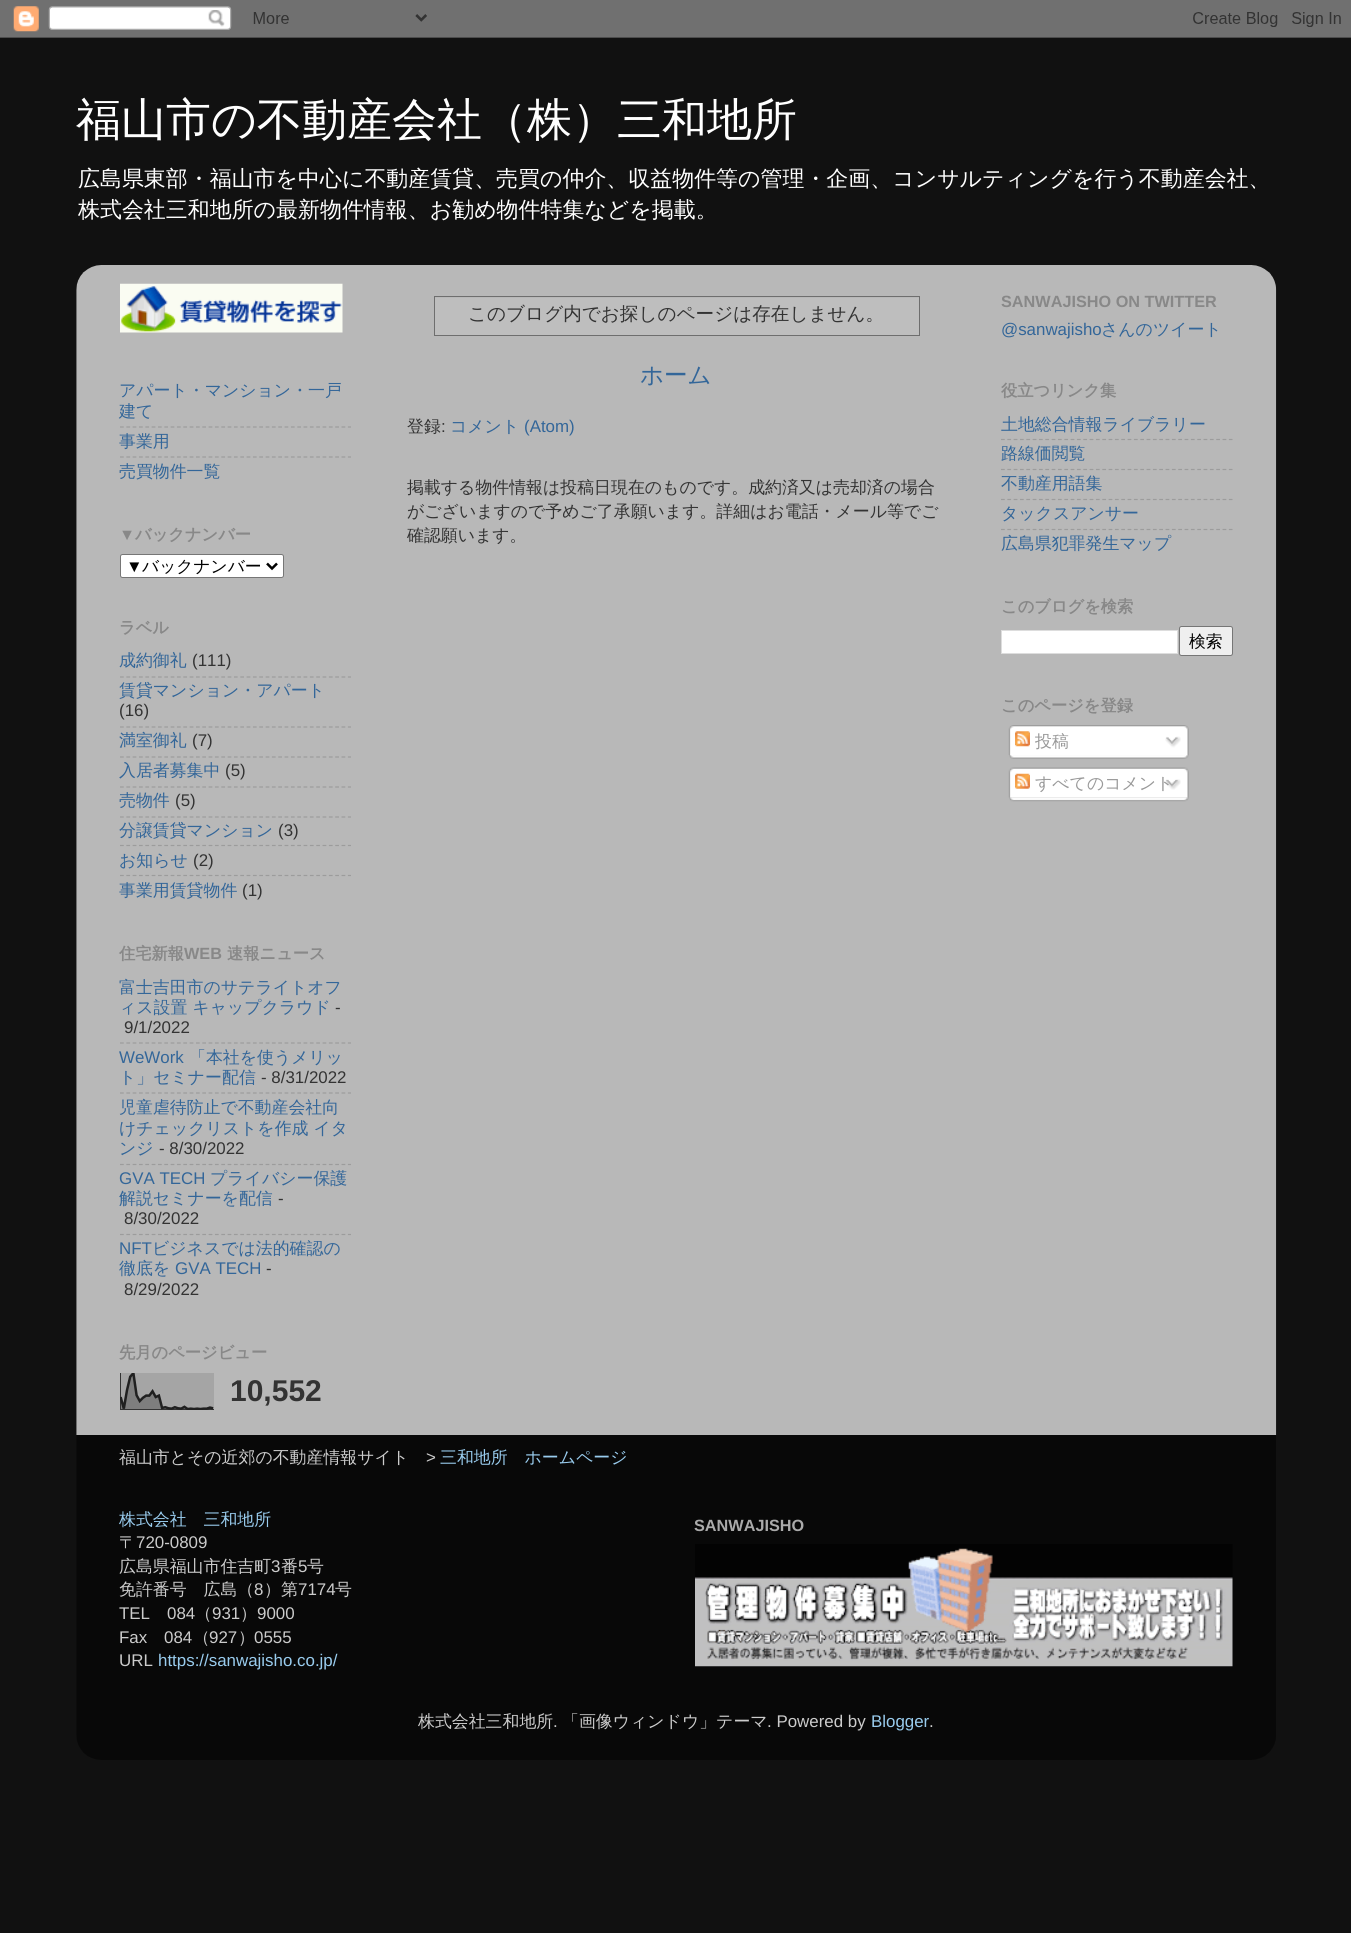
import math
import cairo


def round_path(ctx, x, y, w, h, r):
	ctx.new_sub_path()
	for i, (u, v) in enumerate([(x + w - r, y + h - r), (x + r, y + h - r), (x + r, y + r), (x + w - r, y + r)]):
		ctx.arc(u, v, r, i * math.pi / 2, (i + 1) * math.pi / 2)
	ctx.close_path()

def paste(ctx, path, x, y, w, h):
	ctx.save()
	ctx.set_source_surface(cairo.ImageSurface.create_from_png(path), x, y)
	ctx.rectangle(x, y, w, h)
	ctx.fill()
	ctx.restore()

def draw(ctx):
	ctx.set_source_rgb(0.067, 0.067, 0.067)
	ctx.paint()
	paste(ctx, 'media/1.png', 0, 0, 1351, 38)
	ctx.select_font_face('WenQuanYi Zen Hei Medium')
	ctx.set_font_size(45)
	ctx.set_source_rgb(1, 1, 1)
	ctx.move_to(76, 135)
	ctx.show_text('福山市の不動産会社（株）三和地所')
	ctx.set_font_size(21.95)
	ctx.move_to(78, 186)
	ctx.show_text('広島県東部・福山市を中心に不動産賃貸、売買の仲介、収益物件等の管理・企画、コンサルティングを行う不動産会社、')
	ctx.move_to(78, 217)
	ctx.show_text('株式会社三和地所の最新物件情報、お勧め物件特集などを掲載。')
	paste(ctx, 'media/2.png', 76, 265, 1201, 1170)
	paste(ctx, 'media/3.png', 120, 283, 223, 50)
	ctx.set_font_size(16.9)
	ctx.set_source_rgb(0.2, 0.4, 0.6)
	ctx.move_to(119, 396)
	ctx.show_text('アパート・マンション・一戸')
	ctx.move_to(119, 417)
	ctx.show_text('建て')
	ctx.new_path()
	ctx.move_to(120, 427)
	ctx.line_to(351, 427)
	ctx.set_source_rgb(0.612, 0.612, 0.612)
	ctx.set_line_width(1.2)
	ctx.set_dash([3.75, 2.58])
	ctx.stroke()
	ctx.set_source_rgb(0.2, 0.4, 0.6)
	ctx.move_to(119, 447)
	ctx.show_text('事業用')
	ctx.new_path()
	ctx.move_to(120, 457)
	ctx.line_to(351, 457)
	ctx.set_source_rgb(0.612, 0.612, 0.612)
	ctx.stroke()
	ctx.set_source_rgb(0.2, 0.4, 0.6)
	ctx.move_to(119, 477)
	ctx.show_text('売買物件一覧')
	ctx.select_font_face('Liberation Sans', cairo.FONT_SLANT_NORMAL, cairo.FONT_WEIGHT_BOLD)
	ctx.set_font_size(16.25)
	ctx.set_source_rgb(0.533, 0.533, 0.533)
	ctx.move_to(119, 540)
	ctx.show_text('▼')
	ctx.select_font_face('WenQuanYi Zen Hei', cairo.FONT_SLANT_NORMAL, cairo.FONT_WEIGHT_BOLD)
	ctx.move_to(135, 540)
	ctx.show_text('バックナンバー')
	ctx.set_source_rgb(1, 1, 1)
	round_path(ctx, 120.5, 554.5, 163, 23, 2)
	ctx.fill_preserve()
	ctx.set_source_rgb(0.463, 0.463, 0.463)
	ctx.set_line_width(1)
	ctx.set_dash([])
	ctx.stroke()
	ctx.new_path()
	ctx.move_to(267, 563.5)
	ctx.line_to(272, 568.5)
	ctx.line_to(277, 563.5)
	ctx.set_source_rgb(0, 0, 0)
	ctx.set_line_width(2.5)
	ctx.stroke()
	ctx.select_font_face('Liberation Sans')
	ctx.set_font_size(16.75)
	ctx.move_to(126, 572)
	ctx.show_text('▼')
	ctx.select_font_face('WenQuanYi Zen Hei Medium')
	ctx.move_to(142, 572)
	ctx.show_text('バックナンバー')
	ctx.select_font_face('WenQuanYi Zen Hei', cairo.FONT_SLANT_NORMAL, cairo.FONT_WEIGHT_BOLD)
	ctx.set_font_size(16.25)
	ctx.set_source_rgb(0.533, 0.533, 0.533)
	ctx.move_to(119, 633)
	ctx.show_text('ラベル')
	ctx.select_font_face('WenQuanYi Zen Hei Medium')
	ctx.set_font_size(16.9)
	ctx.set_source_rgb(0.2, 0.4, 0.6)
	ctx.move_to(119, 666)
	ctx.show_text('成約御礼')
	ctx.select_font_face('Liberation Sans')
	ctx.set_source_rgb(0.2, 0.2, 0.2)
	ctx.move_to(192, 666)
	ctx.show_text('(111)')
	ctx.new_path()
	ctx.move_to(120, 677)
	ctx.line_to(351, 677)
	ctx.set_source_rgb(0.612, 0.612, 0.612)
	ctx.set_line_width(1.2)
	ctx.set_dash([3.75, 2.58])
	ctx.stroke()
	ctx.select_font_face('WenQuanYi Zen Hei Medium')
	ctx.set_source_rgb(0.2, 0.4, 0.6)
	ctx.move_to(119, 696)
	ctx.show_text('賃貸マンション・アパート')
	ctx.select_font_face('Liberation Sans')
	ctx.set_source_rgb(0.2, 0.2, 0.2)
	ctx.move_to(119, 716)
	ctx.show_text('(16)')
	ctx.new_path()
	ctx.move_to(120, 727)
	ctx.line_to(351, 727)
	ctx.set_source_rgb(0.612, 0.612, 0.612)
	ctx.stroke()
	ctx.select_font_face('WenQuanYi Zen Hei Medium')
	ctx.set_source_rgb(0.2, 0.4, 0.6)
	ctx.move_to(119, 746)
	ctx.show_text('満室御礼')
	ctx.select_font_face('Liberation Sans')
	ctx.set_source_rgb(0.2, 0.2, 0.2)
	ctx.move_to(192, 746)
	ctx.show_text('(7)')
	ctx.new_path()
	ctx.move_to(120, 757)
	ctx.line_to(351, 757)
	ctx.set_source_rgb(0.612, 0.612, 0.612)
	ctx.stroke()
	ctx.select_font_face('WenQuanYi Zen Hei Medium')
	ctx.set_source_rgb(0.2, 0.4, 0.6)
	ctx.move_to(119, 776)
	ctx.show_text('入居者募集中')
	ctx.select_font_face('Liberation Sans')
	ctx.set_source_rgb(0.2, 0.2, 0.2)
	ctx.move_to(225, 776)
	ctx.show_text('(5)')
	ctx.new_path()
	ctx.move_to(120, 787)
	ctx.line_to(351, 787)
	ctx.set_source_rgb(0.612, 0.612, 0.612)
	ctx.stroke()
	ctx.select_font_face('WenQuanYi Zen Hei Medium')
	ctx.set_source_rgb(0.2, 0.4, 0.6)
	ctx.move_to(119, 806)
	ctx.show_text('売物件')
	ctx.select_font_face('Liberation Sans')
	ctx.set_source_rgb(0.2, 0.2, 0.2)
	ctx.move_to(175, 806)
	ctx.show_text('(5)')
	ctx.new_path()
	ctx.move_to(120, 817)
	ctx.line_to(351, 817)
	ctx.set_source_rgb(0.612, 0.612, 0.612)
	ctx.stroke()
	ctx.select_font_face('WenQuanYi Zen Hei Medium')
	ctx.set_source_rgb(0.2, 0.4, 0.6)
	ctx.move_to(119, 836)
	ctx.show_text('分譲賃貸マンション')
	ctx.select_font_face('Liberation Sans')
	ctx.set_source_rgb(0.2, 0.2, 0.2)
	ctx.move_to(278, 836)
	ctx.show_text('(3)')
	ctx.new_path()
	ctx.move_to(120, 845.5)
	ctx.line_to(351, 845.5)
	ctx.set_source_rgb(0.612, 0.612, 0.612)
	ctx.stroke()
	ctx.select_font_face('WenQuanYi Zen Hei Medium')
	ctx.set_source_rgb(0.2, 0.4, 0.6)
	ctx.move_to(119, 866)
	ctx.show_text('お知らせ')
	ctx.select_font_face('Liberation Sans')
	ctx.set_source_rgb(0.2, 0.2, 0.2)
	ctx.move_to(193, 866)
	ctx.show_text('(2)')
	ctx.new_path()
	ctx.move_to(120, 875.5)
	ctx.line_to(351, 875.5)
	ctx.set_source_rgb(0.612, 0.612, 0.612)
	ctx.stroke()
	ctx.select_font_face('WenQuanYi Zen Hei Medium')
	ctx.set_source_rgb(0.2, 0.4, 0.6)
	ctx.move_to(119, 896)
	ctx.show_text('事業用賃貸物件')
	ctx.select_font_face('Liberation Sans')
	ctx.set_source_rgb(0.2, 0.2, 0.2)
	ctx.move_to(242, 896)
	ctx.show_text('(1)')
	ctx.select_font_face('WenQuanYi Zen Hei', cairo.FONT_SLANT_NORMAL, cairo.FONT_WEIGHT_BOLD)
	ctx.set_font_size(16.25)
	ctx.set_source_rgb(0.533, 0.533, 0.533)
	ctx.move_to(119, 959)
	ctx.show_text('住宅新報')
	ctx.select_font_face('Liberation Sans', cairo.FONT_SLANT_NORMAL, cairo.FONT_WEIGHT_BOLD)
	ctx.move_to(184, 959)
	ctx.show_text('WEB')
	ctx.select_font_face('WenQuanYi Zen Hei', cairo.FONT_SLANT_NORMAL, cairo.FONT_WEIGHT_BOLD)
	ctx.move_to(227, 959)
	ctx.show_text('速報ニュース')
	ctx.select_font_face('WenQuanYi Zen Hei Medium')
	ctx.set_font_size(16.9)
	ctx.set_source_rgb(0.2, 0.4, 0.6)
	ctx.move_to(119, 993)
	ctx.show_text('富士吉田市のサテライトオフ')
	ctx.move_to(119, 1013)
	ctx.show_text('ィス設置 キャップクラウド')
	ctx.select_font_face('Liberation Sans')
	ctx.set_source_rgb(0.2, 0.2, 0.2)
	ctx.move_to(335, 1013)
	ctx.show_text('-')
	ctx.move_to(124, 1033)
	ctx.show_text('9/1/2022')
	ctx.new_path()
	ctx.move_to(120, 1043)
	ctx.line_to(351, 1043)
	ctx.set_source_rgb(0.612, 0.612, 0.612)
	ctx.stroke()
	ctx.set_source_rgb(0.2, 0.4, 0.6)
	ctx.move_to(119, 1063)
	ctx.show_text('WeWork')
	ctx.select_font_face('WenQuanYi Zen Hei Medium')
	ctx.move_to(189, 1063)
	ctx.show_text('「本社を使うメリッ')
	ctx.move_to(119, 1083)
	ctx.show_text('ト」セミナー配信')
	ctx.select_font_face('Liberation Sans')
	ctx.set_source_rgb(0.2, 0.2, 0.2)
	ctx.move_to(261, 1083)
	ctx.show_text('- 8/31/2022')
	ctx.new_path()
	ctx.move_to(120, 1093)
	ctx.line_to(351, 1093)
	ctx.set_source_rgb(0.612, 0.612, 0.612)
	ctx.stroke()
	ctx.select_font_face('WenQuanYi Zen Hei Medium')
	ctx.set_source_rgb(0.2, 0.4, 0.6)
	for x, y, s in [
		(119, 1113, '児童虐待防止で不動産会社向'),
		(119, 1134, 'けチェックリストを作成 イタ'),
		(119, 1154, 'ンジ'),
	]:
		ctx.move_to(x, y)
		ctx.show_text(s)
	ctx.select_font_face('Liberation Sans')
	ctx.set_source_rgb(0.2, 0.2, 0.2)
	ctx.move_to(159, 1154)
	ctx.show_text('- 8/30/2022')
	ctx.new_path()
	ctx.move_to(120, 1164.5)
	ctx.line_to(351, 1164.5)
	ctx.set_source_rgb(0.612, 0.612, 0.612)
	ctx.stroke()
	ctx.set_source_rgb(0.2, 0.4, 0.6)
	ctx.move_to(119, 1184)
	ctx.show_text('GVA TECH')
	ctx.select_font_face('WenQuanYi Zen Hei Medium')
	ctx.move_to(210, 1184)
	ctx.show_text('プライバシー保護')
	ctx.move_to(119, 1204)
	ctx.show_text('解説セミナーを配信')
	ctx.select_font_face('Liberation Sans')
	ctx.set_source_rgb(0.2, 0.2, 0.2)
	ctx.move_to(278, 1204)
	ctx.show_text('-')
	ctx.move_to(124, 1224)
	ctx.show_text('8/30/2022')
	ctx.new_path()
	ctx.move_to(120, 1234.5)
	ctx.line_to(351, 1234.5)
	ctx.set_source_rgb(0.612, 0.612, 0.612)
	ctx.stroke()
	ctx.set_source_rgb(0.2, 0.4, 0.6)
	ctx.move_to(119, 1254)
	ctx.show_text('NFT')
	ctx.select_font_face('WenQuanYi Zen Hei Medium')
	ctx.move_to(152, 1254)
	ctx.show_text('ビジネスでは法的確認の')
	ctx.move_to(119, 1274)
	ctx.show_text('徹底を')
	ctx.select_font_face('Liberation Sans')
	ctx.move_to(175, 1274)
	ctx.show_text('GVA TECH')
	ctx.set_source_rgb(0.2, 0.2, 0.2)
	ctx.move_to(266, 1274)
	ctx.show_text('-')
	ctx.move_to(124, 1295)
	ctx.show_text('8/29/2022')
	ctx.select_font_face('WenQuanYi Zen Hei', cairo.FONT_SLANT_NORMAL, cairo.FONT_WEIGHT_BOLD)
	ctx.set_font_size(16.25)
	ctx.set_source_rgb(0.533, 0.533, 0.533)
	ctx.move_to(119, 1358)
	ctx.show_text('先月のページビュー')
	paste(ctx, 'media/4.png', 120, 1373, 94, 37)
	ctx.select_font_face('Liberation Sans', cairo.FONT_SLANT_NORMAL, cairo.FONT_WEIGHT_BOLD)
	ctx.set_font_size(30)
	ctx.set_source_rgb(0.2, 0.2, 0.2)
	ctx.move_to(230, 1401)
	ctx.show_text('10,552')
	ctx.rectangle(434.5, 296.5, 485, 39)
	ctx.set_source_rgb(0.431, 0.431, 0.431)
	ctx.set_line_width(1)
	ctx.set_dash([])
	ctx.stroke()
	ctx.set_source_rgb(0.745, 0.745, 0.745)
	ctx.rectangle(435, 298, 484, 37)
	ctx.fill()
	ctx.select_font_face('WenQuanYi Zen Hei Medium')
	ctx.set_font_size(18.6)
	ctx.set_source_rgb(0.2, 0.2, 0.2)
	ctx.move_to(468, 320)
	ctx.show_text('このブログ内でお探しのページは存在しません。')
	ctx.set_font_size(23.5)
	ctx.set_source_rgb(0.2, 0.4, 0.6)
	ctx.move_to(640, 383)
	ctx.show_text('ホーム')
	ctx.set_font_size(16.9)
	ctx.set_source_rgb(0.2, 0.2, 0.2)
	ctx.move_to(407, 432)
	ctx.show_text('登録')
	ctx.select_font_face('Liberation Sans')
	ctx.move_to(441, 432)
	ctx.show_text(':')
	ctx.select_font_face('WenQuanYi Zen Hei Medium')
	ctx.set_source_rgb(0.2, 0.4, 0.6)
	ctx.move_to(450, 432)
	ctx.show_text('コメント')
	ctx.select_font_face('Liberation Sans')
	ctx.move_to(524, 432)
	ctx.show_text('(Atom)')
	ctx.select_font_face('WenQuanYi Zen Hei Medium')
	ctx.set_source_rgb(0.2, 0.2, 0.2)
	for x, y, s in [
		(407, 493, '掲載する物件情報は投稿日現在のものです。成約済又は売却済の場合'),
		(407, 517, 'がございますので予めご了承願います。詳細はお電話・メール等でご'),
		(407, 541, '確認願います。'),
	]:
		ctx.move_to(x, y)
		ctx.show_text(s)
	ctx.select_font_face('Liberation Sans', cairo.FONT_SLANT_NORMAL, cairo.FONT_WEIGHT_BOLD)
	ctx.set_font_size(16.25)
	ctx.set_source_rgb(0.533, 0.533, 0.533)
	ctx.move_to(1001, 307)
	ctx.show_text('SANWAJISHO ON TWITTER')
	ctx.select_font_face('Liberation Sans')
	ctx.set_font_size(16.9)
	ctx.set_source_rgb(0.2, 0.4, 0.6)
	ctx.move_to(1001, 335)
	ctx.show_text('@sanwajisho')
	ctx.select_font_face('WenQuanYi Zen Hei Medium')
	ctx.move_to(1101, 335)
	ctx.show_text('さんのツイート')
	ctx.select_font_face('WenQuanYi Zen Hei', cairo.FONT_SLANT_NORMAL, cairo.FONT_WEIGHT_BOLD)
	ctx.set_font_size(16.25)
	ctx.set_source_rgb(0.533, 0.533, 0.533)
	ctx.move_to(1001, 396)
	ctx.show_text('役立つリンク集')
	ctx.select_font_face('WenQuanYi Zen Hei Medium')
	ctx.set_font_size(16.9)
	ctx.set_source_rgb(0.2, 0.4, 0.6)
	ctx.move_to(1001, 430)
	ctx.show_text('土地総合情報ライブラリー')
	ctx.new_path()
	ctx.move_to(1001, 439.5)
	ctx.line_to(1232.5, 439.5)
	ctx.set_source_rgb(0.612, 0.612, 0.612)
	ctx.set_line_width(1.2)
	ctx.set_dash([3.75, 2.58])
	ctx.stroke()
	ctx.set_source_rgb(0.2, 0.4, 0.6)
	ctx.move_to(1001, 459)
	ctx.show_text('路線価閲覧')
	ctx.new_path()
	ctx.move_to(1001, 469.5)
	ctx.line_to(1232.5, 469.5)
	ctx.set_source_rgb(0.612, 0.612, 0.612)
	ctx.stroke()
	ctx.set_source_rgb(0.2, 0.4, 0.6)
	ctx.move_to(1001, 489)
	ctx.show_text('不動産用語集')
	ctx.new_path()
	ctx.move_to(1001, 499.5)
	ctx.line_to(1232.5, 499.5)
	ctx.set_source_rgb(0.612, 0.612, 0.612)
	ctx.stroke()
	ctx.set_source_rgb(0.2, 0.4, 0.6)
	ctx.move_to(1001, 519)
	ctx.show_text('タックスアンサー')
	ctx.new_path()
	ctx.move_to(1001, 529.5)
	ctx.line_to(1232.5, 529.5)
	ctx.set_source_rgb(0.612, 0.612, 0.612)
	ctx.stroke()
	ctx.set_source_rgb(0.2, 0.4, 0.6)
	ctx.move_to(1001, 549)
	ctx.show_text('広島県犯罪発生マップ')
	ctx.select_font_face('WenQuanYi Zen Hei', cairo.FONT_SLANT_NORMAL, cairo.FONT_WEIGHT_BOLD)
	ctx.set_font_size(16.25)
	ctx.set_source_rgb(0.533, 0.533, 0.533)
	ctx.move_to(1001, 612)
	ctx.show_text('このブログを検索')
	ctx.set_source_rgb(1, 1, 1)
	ctx.rectangle(1001.5, 630.5, 176, 23)
	ctx.fill_preserve()
	ctx.set_source_rgb(0.867, 0.867, 0.867)
	ctx.set_line_width(1)
	ctx.set_dash([])
	ctx.stroke()
	ctx.set_source_rgb(0.937, 0.937, 0.937)
	round_path(ctx, 1179.5, 626.5, 53, 29, 2)
	ctx.fill_preserve()
	ctx.set_source_rgb(0.463, 0.463, 0.463)
	ctx.stroke()
	ctx.select_font_face('WenQuanYi Zen Hei Medium')
	ctx.set_font_size(16.75)
	ctx.set_source_rgb(0, 0, 0)
	ctx.move_to(1189, 647)
	ctx.show_text('検索')
	ctx.select_font_face('WenQuanYi Zen Hei', cairo.FONT_SLANT_NORMAL, cairo.FONT_WEIGHT_BOLD)
	ctx.set_font_size(16.25)
	ctx.set_source_rgb(0.533, 0.533, 0.533)
	ctx.move_to(1001, 711)
	ctx.show_text('このページを登録')
	paste(ctx, 'media/5.png', 1008, 725, 181, 30)
	paste(ctx, 'media/6.png', 1015, 731, 15, 16)
	ctx.select_font_face('WenQuanYi Zen Hei Medium')
	ctx.set_font_size(16.9)
	ctx.set_source_rgb(0.6, 0.6, 0.6)
	ctx.move_to(1035, 747)
	ctx.show_text('投稿')
	paste(ctx, 'media/7.png', 1165, 736, 16, 12)
	paste(ctx, 'media/8.png', 1009, 755, 180, 4)
	paste(ctx, 'media/9.png', 1008, 767, 181, 31)
	paste(ctx, 'media/10.png', 1015, 773, 15, 16)
	paste(ctx, 'media/11.png', 1165, 779, 16, 11)
	ctx.move_to(1035, 789)
	ctx.show_text('すべてのコメント')
	paste(ctx, 'media/12.png', 1009, 797, 180, 5)
	paste(ctx, 'media/13.png', 76, 1435, 1200, 325)
	ctx.set_source_rgb(0.8, 0.8, 0.8)
	ctx.move_to(119, 1463)
	ctx.show_text('福山市とその近郊の不動産情報サイト')
	ctx.select_font_face('Liberation Sans')
	ctx.move_to(426, 1463)
	ctx.show_text('>')
	ctx.select_font_face('WenQuanYi Zen Hei Medium')
	ctx.set_source_rgb(0.6, 0.8, 0.933)
	ctx.move_to(440, 1463)
	ctx.show_text('三和地所　ホームページ')
	ctx.move_to(119, 1525)
	ctx.show_text('株式会社　三和地所')
	ctx.set_source_rgb(0.8, 0.8, 0.8)
	ctx.move_to(119, 1548)
	ctx.show_text('〒')
	ctx.select_font_face('Liberation Sans')
	ctx.move_to(136, 1548)
	ctx.show_text('720-0809')
	ctx.select_font_face('WenQuanYi Zen Hei Medium')
	ctx.move_to(119, 1572)
	ctx.show_text('広島県福山市住吉町')
	ctx.select_font_face('Liberation Sans')
	ctx.move_to(271, 1572)
	ctx.show_text('3')
	ctx.select_font_face('WenQuanYi Zen Hei Medium')
	ctx.move_to(281, 1572)
	ctx.show_text('番')
	ctx.select_font_face('Liberation Sans')
	ctx.move_to(298, 1572)
	ctx.show_text('5')
	ctx.select_font_face('WenQuanYi Zen Hei Medium')
	ctx.move_to(307, 1572)
	ctx.show_text('号')
	ctx.move_to(119, 1595)
	ctx.show_text('免許番号　広島（')
	ctx.select_font_face('Liberation Sans')
	ctx.move_to(254, 1595)
	ctx.show_text('8')
	ctx.select_font_face('WenQuanYi Zen Hei Medium')
	ctx.move_to(264, 1595)
	ctx.show_text('）第')
	ctx.select_font_face('Liberation Sans')
	ctx.move_to(298, 1595)
	ctx.show_text('7174')
	ctx.select_font_face('WenQuanYi Zen Hei Medium')
	ctx.move_to(335, 1595)
	ctx.show_text('号')
	ctx.select_font_face('Liberation Sans')
	ctx.move_to(119, 1619)
	ctx.show_text('TEL')
	ctx.move_to(167, 1619)
	ctx.show_text('084')
	ctx.select_font_face('WenQuanYi Zen Hei Medium')
	ctx.move_to(195, 1619)
	ctx.show_text('（')
	ctx.select_font_face('Liberation Sans')
	ctx.move_to(212, 1619)
	ctx.show_text('931')
	ctx.select_font_face('WenQuanYi Zen Hei Medium')
	ctx.move_to(240, 1619)
	ctx.show_text('）')
	ctx.select_font_face('Liberation Sans')
	for x, y, s in [
		(257, 1619, '9000'),
		(119, 1643, 'Fax'),
		(164, 1643, '084'),
	]:
		ctx.move_to(x, y)
		ctx.show_text(s)
	ctx.select_font_face('WenQuanYi Zen Hei Medium')
	ctx.move_to(193, 1643)
	ctx.show_text('（')
	ctx.select_font_face('Liberation Sans')
	ctx.move_to(209, 1643)
	ctx.show_text('927')
	ctx.select_font_face('WenQuanYi Zen Hei Medium')
	ctx.move_to(238, 1643)
	ctx.show_text('）')
	ctx.select_font_face('Liberation Sans')
	ctx.move_to(254, 1643)
	ctx.show_text('0555')
	ctx.move_to(119, 1666)
	ctx.show_text('URL')
	ctx.set_source_rgb(0.6, 0.8, 0.933)
	ctx.move_to(158, 1666)
	ctx.show_text('https://sanwajisho.co.jp/')
	ctx.select_font_face('Liberation Sans', cairo.FONT_SLANT_NORMAL, cairo.FONT_WEIGHT_BOLD)
	ctx.set_font_size(16.25)
	ctx.set_source_rgb(0.667, 0.667, 0.667)
	ctx.move_to(694, 1531)
	ctx.show_text('SANWAJISHO')
	paste(ctx, 'media/14.png', 695, 1544, 538, 123)
	ctx.select_font_face('WenQuanYi Zen Hei Medium')
	ctx.set_font_size(16.9)
	ctx.set_source_rgb(0.8, 0.8, 0.8)
	ctx.move_to(418, 1727)
	ctx.show_text('株式会社三和地所')
	ctx.select_font_face('Liberation Sans')
	ctx.move_to(553, 1727)
	ctx.show_text('.')
	ctx.select_font_face('WenQuanYi Zen Hei Medium')
	ctx.move_to(562, 1727)
	ctx.show_text('「画像ウィンドウ」テーマ')
	ctx.select_font_face('Liberation Sans')
	ctx.move_to(767, 1727)
	ctx.show_text('. Powered by')
	ctx.set_source_rgb(0.6, 0.8, 0.933)
	ctx.move_to(871, 1727)
	ctx.show_text('Blogger')
	ctx.set_source_rgb(0.8, 0.8, 0.8)
	ctx.move_to(929, 1727)
	ctx.show_text('.')


surface = cairo.ImageSurface(cairo.FORMAT_RGB24, 1351, 1933)
ctx = cairo.Context(surface)
options = cairo.FontOptions()
options.set_hint_metrics(cairo.HINT_METRICS_OFF)
options.set_hint_style(cairo.HINT_STYLE_NONE)
ctx.set_font_options(options)
ctx.set_miter_limit(4)
draw(ctx)
surface.write_to_png('image.png')
